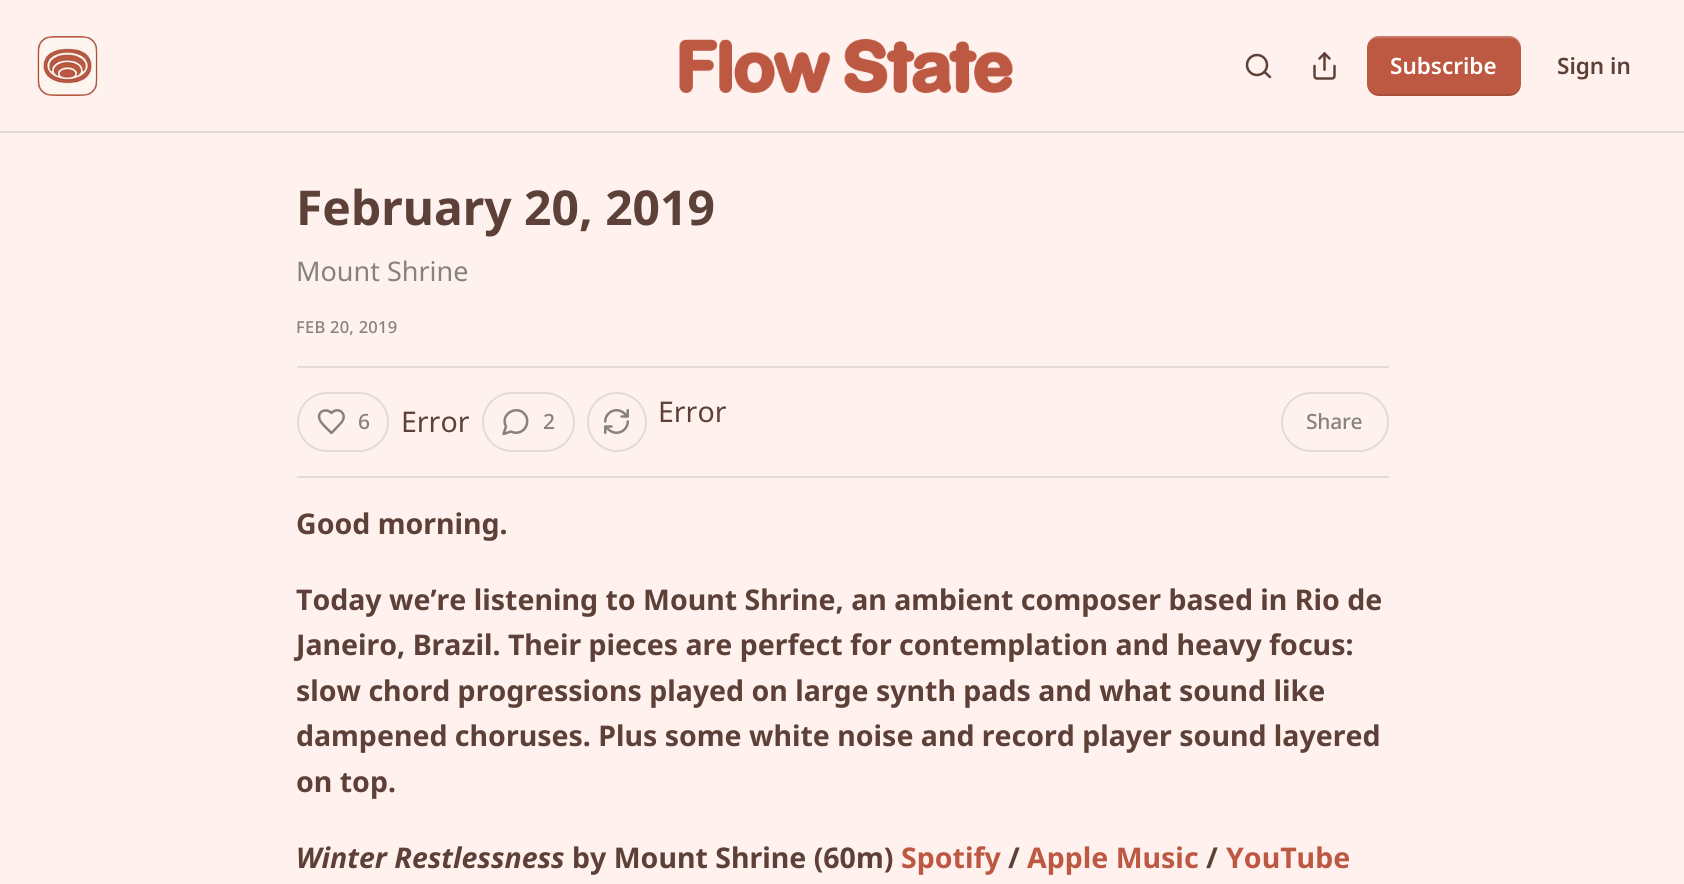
import math
import cairo


def write_spaced(ctx, x, y, s, letter, word):
	ctx.move_to(x, y)
	for ch in s:
		ctx.show_text(ch)
		ctx.rel_move_to(letter + word * (ch == ' '), 0)

def round_path(ctx, x, y, w, h, r):
	ctx.new_sub_path()
	for i, (u, v) in enumerate([(x + w - r, y + h - r), (x + r, y + h - r), (x + r, y + r), (x + w - r, y + r)]):
		ctx.arc(u, v, r, i * math.pi / 2, (i + 1) * math.pi / 2)
	ctx.close_path()

def paste(ctx, path, x, y, w, h):
	ctx.save()
	ctx.set_source_surface(cairo.ImageSurface.create_from_png(path), x, y)
	ctx.rectangle(x, y, w, h)
	ctx.fill()
	ctx.restore()

def draw(ctx):
	ctx.set_source_rgb(1, 0.949, 0.933)
	ctx.paint()
	ctx.set_source_rgb(0.902, 0.855, 0.839)
	ctx.rectangle(0, 131, 1684, 2)
	ctx.fill()
	ctx.set_source_rgb(1, 1, 1)
	round_path(ctx, 38, 36, 60, 60, 12)
	ctx.fill()
	paste(ctx, 'media/1.png', 37, 36, 61, 60)
	paste(ctx, 'media/2.png', 679, 39, 334, 54)
	ctx.arc(1257, 65, 10, 0, 2 * math.pi)
	ctx.set_source_rgb(0.365, 0.251, 0.216)
	ctx.set_line_width(2.5)
	ctx.stroke()
	ctx.new_path()
	ctx.move_to(1270, 77)
	ctx.line_to(1264.5, 72)
	ctx.set_line_cap(cairo.LINE_CAP_ROUND)
	ctx.set_line_join(cairo.LINE_JOIN_ROUND)
	ctx.stroke()
	paste(ctx, 'media/3.png', 1313, 52, 23, 28)
	ctx.set_source_rgb(0.741, 0.345, 0.259)
	round_path(ctx, 1367, 36, 154, 60, 12)
	ctx.fill()
	ctx.set_source_rgba(0, 0, 0, 0.1)
	ctx.new_path()
	ctx.move_to(1368, 88)
	ctx.curve_to(1369, 93, 1374, 96, 1379, 96)
	ctx.line_to(1509, 96)
	ctx.curve_to(1516, 96, 1521, 91, 1521, 84)
	ctx.line_to(1521, 82)
	ctx.curve_to(1521, 89, 1516, 94, 1509, 94)
	ctx.line_to(1378, 94)
	ctx.curve_to(1374, 94, 1370, 92, 1368, 88)
	ctx.close_path()
	ctx.fill()
	ctx.set_source_rgba(1, 1, 1, 0.2)
	ctx.new_path()
	ctx.move_to(1378, 38)
	ctx.line_to(1509, 38)
	ctx.curve_to(1516, 38, 1521, 43, 1521, 50)
	ctx.line_to(1521, 48)
	ctx.curve_to(1521, 41, 1516, 36, 1509, 36)
	ctx.line_to(1379, 36)
	ctx.curve_to(1374, 36, 1369, 39, 1368, 44)
	ctx.curve_to(1370, 40, 1374, 38, 1378, 38)
	ctx.close_path()
	ctx.fill()
	ctx.select_font_face('Noto Sans SemiBold')
	ctx.set_font_size(22.5)
	ctx.set_source_rgb(1, 1, 1)
	ctx.move_to(1390, 74)
	ctx.show_text('Subscribe')
	ctx.set_source_rgb(0.365, 0.251, 0.216)
	ctx.move_to(1557, 74)
	ctx.show_text('Sign in')
	ctx.select_font_face('Noto Sans', cairo.FONT_SLANT_NORMAL, cairo.FONT_WEIGHT_BOLD)
	ctx.set_font_size(48)
	ctx.move_to(296, 225)
	ctx.show_text('February 20, 2019')
	ctx.select_font_face('Noto Sans')
	ctx.set_font_size(27)
	ctx.set_source_rgb(0.525, 0.51, 0.502)
	ctx.move_to(296, 281)
	ctx.show_text('Mount Shrine')
	ctx.select_font_face('Noto Sans Medium')
	ctx.set_font_size(16.5)
	write_spaced(ctx, 296, 333, 'FEB 20, 2019', 0.25, 0)
	ctx.set_source_rgb(0.902, 0.855, 0.839)
	ctx.rectangle(297, 366, 1092, 2)
	ctx.fill()
	ctx.rectangle(297, 476, 1092, 2)
	ctx.fill()
	round_path(ctx, 298, 393, 90, 58, 29)
	ctx.set_line_width(2)
	ctx.set_line_cap(cairo.LINE_CAP_BUTT)
	ctx.set_line_join(cairo.LINE_JOIN_MITER)
	ctx.stroke()
	ctx.new_path()
	ctx.move_to(340, 424)
	ctx.curve_to(349.5, 415, 338.5, 405.5, 331.5, 413)
	ctx.curve_to(326, 407.5, 317, 411.5, 319.5, 419)
	ctx.curve_to(320.5, 423, 328.5, 430, 331.5, 433)
	ctx.close_path()
	ctx.set_source_rgb(0.525, 0.51, 0.502)
	ctx.set_line_width(2.5)
	ctx.set_line_cap(cairo.LINE_CAP_ROUND)
	ctx.set_line_join(cairo.LINE_JOIN_ROUND)
	ctx.stroke()
	ctx.set_font_size(21)
	write_spaced(ctx, 358, 429, '6', -0.25, 0)
	ctx.select_font_face('Noto Sans')
	ctx.set_font_size(28.5)
	ctx.set_source_rgb(0.365, 0.251, 0.216)
	ctx.move_to(401, 432)
	ctx.show_text('Error')
	round_path(ctx, 483, 393, 91, 58, 29)
	ctx.set_source_rgb(0.902, 0.855, 0.839)
	ctx.set_line_width(2)
	ctx.set_line_cap(cairo.LINE_CAP_BUTT)
	ctx.set_line_join(cairo.LINE_JOIN_MITER)
	ctx.stroke()
	ctx.new_path()
	ctx.move_to(511, 431.5)
	ctx.curve_to(516.5, 434.5, 523.5, 432, 526, 426.5)
	ctx.curve_to(527.5, 423.5, 527.5, 420, 526.5, 417)
	ctx.curve_to(520, 403, 499, 413, 506, 426.5)
	ctx.line_to(503.5, 434)
	ctx.close_path()
	ctx.set_source_rgb(0.525, 0.51, 0.502)
	ctx.set_line_width(2.5)
	ctx.set_line_cap(cairo.LINE_CAP_ROUND)
	ctx.set_line_join(cairo.LINE_JOIN_ROUND)
	ctx.stroke()
	ctx.select_font_face('Noto Sans Medium')
	ctx.set_font_size(21)
	write_spaced(ctx, 543, 429, '2', -0.25, 0)
	ctx.new_path()
	ctx.arc(617, 422, 29, 0, 2 * math.pi)
	ctx.set_source_rgb(0.902, 0.855, 0.839)
	ctx.set_line_width(2)
	ctx.set_line_cap(cairo.LINE_CAP_BUTT)
	ctx.set_line_join(cairo.LINE_JOIN_MITER)
	ctx.stroke()
	paste(ctx, 'media/4.png', 604, 409, 25, 25)
	ctx.select_font_face('Noto Sans')
	ctx.set_font_size(28.5)
	ctx.set_source_rgb(0.365, 0.251, 0.216)
	ctx.move_to(658, 422)
	ctx.show_text('Error')
	round_path(ctx, 1282, 393, 106, 58, 29)
	ctx.set_source_rgb(0.902, 0.855, 0.839)
	ctx.stroke()
	ctx.select_font_face('Noto Sans Medium')
	ctx.set_font_size(21)
	ctx.set_source_rgb(0.525, 0.51, 0.502)
	write_spaced(ctx, 1306, 429, 'Share', -0.25, 0)
	ctx.select_font_face('Noto Sans', cairo.FONT_SLANT_NORMAL, cairo.FONT_WEIGHT_BOLD)
	ctx.set_font_size(28.5)
	ctx.set_source_rgb(0.365, 0.251, 0.216)
	for x, y, s in [
		(296, 534, 'Good morning.'),
		(296, 610, 'Today we’re listening to Mount Shrine, an ambient composer based in Rio de'),
		(296, 655, 'Janeiro, Brazil. Their pieces are perfect for contemplation and heavy focus:'),
		(296, 701, 'slow chord progressions played on large synth pads and what sound like'),
		(296, 746, 'dampened choruses. Plus some white noise and record player sound layered'),
		(296, 792, 'on top.'),
	]:
		ctx.move_to(x, y)
		ctx.show_text(s)
	ctx.select_font_face('Noto Sans', cairo.FONT_SLANT_ITALIC, cairo.FONT_WEIGHT_BOLD)
	ctx.move_to(296, 868)
	ctx.show_text('Winter Restlessness')
	ctx.select_font_face('Noto Sans', cairo.FONT_SLANT_NORMAL, cairo.FONT_WEIGHT_BOLD)
	ctx.move_to(572, 868)
	ctx.show_text('by Mount Shrine (60m)')
	ctx.set_source_rgb(0.741, 0.345, 0.259)
	ctx.move_to(901, 868)
	ctx.show_text('Spotify')
	ctx.set_source_rgb(0.365, 0.251, 0.216)
	ctx.move_to(1008, 868)
	ctx.show_text('/')
	ctx.set_source_rgb(0.741, 0.345, 0.259)
	ctx.move_to(1027, 868)
	ctx.show_text('Apple Music')
	ctx.set_source_rgb(0.365, 0.251, 0.216)
	ctx.move_to(1206, 868)
	ctx.show_text('/')
	ctx.set_source_rgb(0.741, 0.345, 0.259)
	ctx.move_to(1226, 868)
	ctx.show_text('YouTube')


surface = cairo.ImageSurface(cairo.FORMAT_RGB24, 1684, 884)
ctx = cairo.Context(surface)
options = cairo.FontOptions()
options.set_hint_metrics(cairo.HINT_METRICS_OFF)
options.set_hint_style(cairo.HINT_STYLE_NONE)
ctx.set_font_options(options)
ctx.set_miter_limit(4)
draw(ctx)
surface.write_to_png('image.png')
